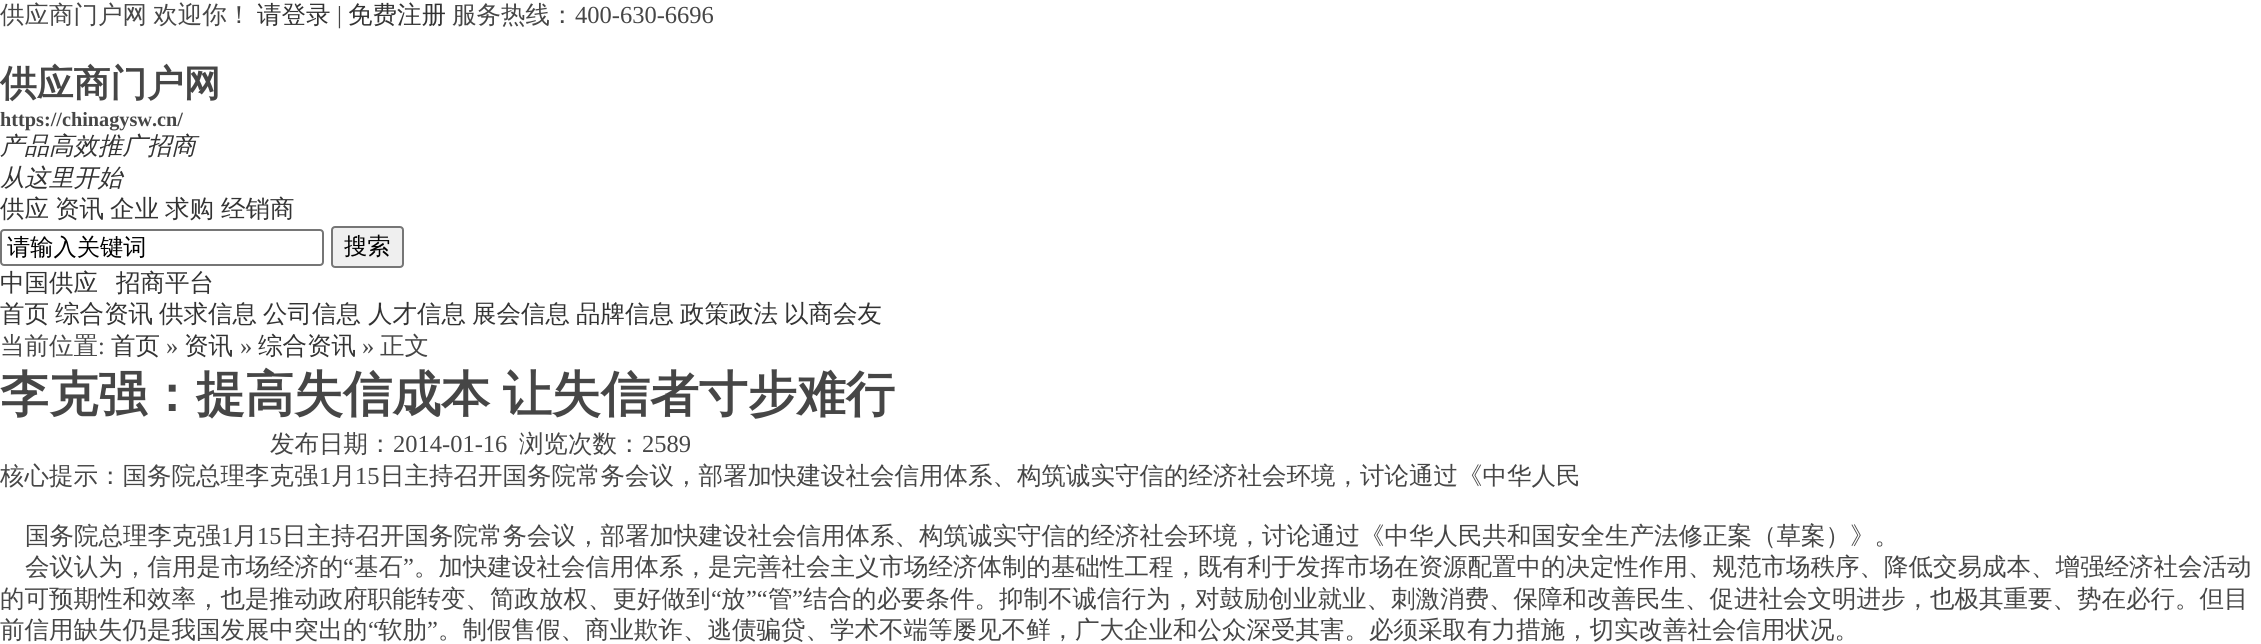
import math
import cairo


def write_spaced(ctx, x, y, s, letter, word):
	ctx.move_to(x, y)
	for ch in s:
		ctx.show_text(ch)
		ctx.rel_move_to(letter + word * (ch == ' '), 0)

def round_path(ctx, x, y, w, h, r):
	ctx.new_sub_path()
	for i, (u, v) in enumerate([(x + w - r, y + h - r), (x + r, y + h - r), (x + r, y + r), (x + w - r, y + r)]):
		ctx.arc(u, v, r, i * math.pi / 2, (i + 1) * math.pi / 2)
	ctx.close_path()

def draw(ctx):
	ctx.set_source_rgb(1, 1, 1)
	ctx.paint()
	ctx.select_font_face('WenQuanYi Zen Hei Medium')
	ctx.set_font_size(24.5)
	ctx.set_source_rgb(0.275, 0.275, 0.275)
	write_spaced(ctx, 0, 23, '供应商门户网 欢迎你！', 0, -1)
	ctx.set_source_rgb(0.2, 0.2, 0.2)
	ctx.move_to(257, 23)
	ctx.show_text('请登录')
	ctx.select_font_face('Liberation Serif')
	ctx.set_source_rgb(0.275, 0.275, 0.275)
	ctx.move_to(337, 23)
	ctx.show_text('|')
	ctx.select_font_face('WenQuanYi Zen Hei Medium')
	ctx.set_source_rgb(0.2, 0.2, 0.2)
	ctx.move_to(348, 23)
	ctx.show_text('免费注册')
	ctx.set_source_rgb(0.275, 0.275, 0.275)
	ctx.move_to(452, 23)
	ctx.show_text('服务热线：')
	ctx.select_font_face('Liberation Serif')
	ctx.move_to(575, 23)
	ctx.show_text('400-630-6696')
	ctx.select_font_face('WenQuanYi Zen Hei', cairo.FONT_SLANT_NORMAL, cairo.FONT_WEIGHT_BOLD)
	ctx.set_font_size(36.75)
	ctx.move_to(0, 96)
	ctx.show_text('供应商门户网')
	ctx.select_font_face('Liberation Serif', cairo.FONT_SLANT_NORMAL, cairo.FONT_WEIGHT_BOLD)
	ctx.set_font_size(20.25)
	ctx.move_to(0, 126)
	ctx.show_text('https://chinagysw.cn/')
	ctx.select_font_face('WenQuanYi Zen Hei Medium', cairo.FONT_SLANT_ITALIC)
	ctx.set_font_size(24.5)
	ctx.set_source_rgb(0.2, 0.2, 0.2)
	ctx.move_to(0, 154)
	ctx.show_text('产品高效推广招商')
	ctx.move_to(0, 186)
	ctx.show_text('从这里开始')
	ctx.select_font_face('WenQuanYi Zen Hei Medium')
	for x, y, s in [
		(0, 217, '供应'),
		(55, 217, '资讯'),
		(110, 217, '企业'),
		(165, 217, '求购'),
		(221, 217, '经销商'),
	]:
		ctx.move_to(x, y)
		ctx.show_text(s)
	round_path(ctx, 1, 230, 322, 35, 3)
	ctx.set_source_rgb(0.463, 0.463, 0.463)
	ctx.stroke()
	ctx.set_font_size(23.25)
	ctx.set_source_rgb(0, 0, 0)
	ctx.move_to(7, 255)
	ctx.show_text('请输入关键词')
	ctx.set_source_rgb(0.937, 0.937, 0.937)
	round_path(ctx, 332, 227, 71, 40, 3)
	ctx.fill_preserve()
	ctx.set_source_rgb(0.463, 0.463, 0.463)
	ctx.stroke()
	ctx.set_source_rgb(0, 0, 0)
	ctx.move_to(344, 254)
	ctx.show_text('搜索')
	ctx.set_font_size(24.5)
	ctx.set_source_rgb(0.2, 0.2, 0.2)
	for x, y, s in [
		(0, 291, '中国供应'),
		(116, 291, '招商平台'),
		(0, 322, '首页'),
		(55, 322, '综合资讯'),
		(159, 322, '供求信息'),
		(263, 322, '公司信息'),
		(368, 322, '人才信息'),
		(472, 322, '展会信息'),
		(576, 322, '品牌信息'),
		(680, 322, '政策政法'),
		(784, 322, '以商会友'),
	]:
		ctx.move_to(x, y)
		ctx.show_text(s)
	ctx.set_source_rgb(0.275, 0.275, 0.275)
	ctx.move_to(0, 354)
	ctx.show_text('当前位置')
	ctx.select_font_face('Liberation Serif')
	ctx.move_to(98, 354)
	ctx.show_text(':')
	ctx.select_font_face('WenQuanYi Zen Hei Medium')
	ctx.set_source_rgb(0.2, 0.2, 0.2)
	ctx.move_to(111, 354)
	ctx.show_text('首页')
	ctx.select_font_face('Liberation Serif')
	ctx.set_source_rgb(0.275, 0.275, 0.275)
	ctx.move_to(166, 354)
	ctx.show_text('»')
	ctx.select_font_face('WenQuanYi Zen Hei Medium')
	ctx.set_source_rgb(0.2, 0.2, 0.2)
	ctx.move_to(184, 354)
	ctx.show_text('资讯')
	ctx.select_font_face('Liberation Serif')
	ctx.set_source_rgb(0.275, 0.275, 0.275)
	ctx.move_to(240, 354)
	ctx.show_text('»')
	ctx.select_font_face('WenQuanYi Zen Hei Medium')
	ctx.set_source_rgb(0.2, 0.2, 0.2)
	ctx.move_to(258, 354)
	ctx.show_text('综合资讯')
	ctx.select_font_face('Liberation Serif')
	ctx.set_source_rgb(0.275, 0.275, 0.275)
	ctx.move_to(362, 354)
	ctx.show_text('»')
	ctx.select_font_face('WenQuanYi Zen Hei Medium')
	ctx.move_to(380, 354)
	ctx.show_text('正文')
	ctx.select_font_face('WenQuanYi Zen Hei', cairo.FONT_SLANT_NORMAL, cairo.FONT_WEIGHT_BOLD)
	ctx.set_font_size(49)
	write_spaced(ctx, 0, 411, '李克强：提高失信成本 让失信者寸步难行', 0, -2)
	ctx.select_font_face('WenQuanYi Zen Hei Medium')
	ctx.set_font_size(24.5)
	ctx.move_to(270, 452)
	ctx.show_text('发布日期：')
	ctx.select_font_face('Liberation Serif')
	ctx.move_to(393, 452)
	ctx.show_text('2014-01-16')
	ctx.select_font_face('WenQuanYi Zen Hei Medium')
	ctx.move_to(519, 452)
	ctx.show_text('浏览次数：')
	ctx.select_font_face('Liberation Serif')
	ctx.move_to(642, 452)
	ctx.show_text('2589')
	ctx.select_font_face('WenQuanYi Zen Hei Medium')
	ctx.move_to(0, 484)
	ctx.show_text('核心提示：国务院总理李克强')
	ctx.select_font_face('Liberation Serif')
	ctx.move_to(319, 484)
	ctx.show_text('1')
	ctx.select_font_face('WenQuanYi Zen Hei Medium')
	ctx.move_to(331, 484)
	ctx.show_text('月')
	ctx.select_font_face('Liberation Serif')
	ctx.move_to(355, 484)
	ctx.show_text('15')
	ctx.select_font_face('WenQuanYi Zen Hei Medium')
	ctx.move_to(380, 484)
	ctx.show_text('日主持召开国务院常务会议，部署加快建设社会信用体系、构筑诚实守信的经济社会环境，讨论通过《中华人民')
	ctx.move_to(25, 544)
	ctx.show_text('国务院总理李克强')
	ctx.select_font_face('Liberation Serif')
	ctx.move_to(221, 544)
	ctx.show_text('1')
	ctx.select_font_face('WenQuanYi Zen Hei Medium')
	ctx.move_to(233, 544)
	ctx.show_text('月')
	ctx.select_font_face('Liberation Serif')
	ctx.move_to(257, 544)
	ctx.show_text('15')
	ctx.select_font_face('WenQuanYi Zen Hei Medium')
	ctx.move_to(282, 544)
	ctx.show_text('日主持召开国务院常务会议，部署加快建设社会信用体系、构筑诚实守信的经济社会环境，讨论通过《中华人民共和国安全生产法修正案（草案）》。')
	ctx.move_to(25, 575)
	ctx.show_text('会议认为，信用是市场经济的')
	ctx.select_font_face('Liberation Serif')
	ctx.move_to(343, 575)
	ctx.show_text('“')
	ctx.select_font_face('WenQuanYi Zen Hei Medium')
	ctx.move_to(354, 575)
	ctx.show_text('基石')
	ctx.select_font_face('Liberation Serif')
	ctx.move_to(403, 575)
	ctx.show_text('”')
	ctx.select_font_face('WenQuanYi Zen Hei Medium')
	ctx.move_to(414, 575)
	ctx.show_text('。加快建设社会信用体系，是完善社会主义市场经济体制的基础性工程，既有利于发挥市场在资源配置中的决定性作用、规范市场秩序、降低交易成本、增强经济社会活动')
	ctx.move_to(0, 607)
	ctx.show_text('的可预期性和效率，也是推动政府职能转变、简政放权、更好做到')
	ctx.select_font_face('Liberation Serif')
	ctx.move_to(711, 607)
	ctx.show_text('“')
	ctx.select_font_face('WenQuanYi Zen Hei Medium')
	ctx.move_to(721, 607)
	ctx.show_text('放')
	ctx.select_font_face('Liberation Serif')
	ctx.move_to(746, 607)
	ctx.show_text('”“')
	ctx.select_font_face('WenQuanYi Zen Hei Medium')
	ctx.move_to(768, 607)
	ctx.show_text('管')
	ctx.select_font_face('Liberation Serif')
	ctx.move_to(792, 607)
	ctx.show_text('”')
	ctx.select_font_face('WenQuanYi Zen Hei Medium')
	ctx.move_to(803, 607)
	ctx.show_text('结合的必要条件。抑制不诚信行为，对鼓励创业就业、刺激消费、保障和改善民生、促进社会文明进步，也极其重要、势在必行。但目')
	ctx.move_to(0, 638)
	ctx.show_text('前信用缺失仍是我国发展中突出的')
	ctx.select_font_face('Liberation Serif')
	ctx.move_to(368, 638)
	ctx.show_text('“')
	ctx.select_font_face('WenQuanYi Zen Hei Medium')
	ctx.move_to(378, 638)
	ctx.show_text('软肋')
	ctx.select_font_face('Liberation Serif')
	ctx.move_to(427, 638)
	ctx.show_text('”')
	ctx.select_font_face('WenQuanYi Zen Hei Medium')
	ctx.move_to(438, 638)
	ctx.show_text('。制假售假、商业欺诈、逃债骗贷、学术不端等屡见不鲜，广大企业和公众深受其害。必须采取有力措施，切实改善社会信用状况。')


surface = cairo.ImageSurface(cairo.FORMAT_RGB24, 2261, 644)
ctx = cairo.Context(surface)
options = cairo.FontOptions()
options.set_hint_metrics(cairo.HINT_METRICS_OFF)
options.set_hint_style(cairo.HINT_STYLE_NONE)
ctx.set_font_options(options)
ctx.set_miter_limit(4)
draw(ctx)
surface.write_to_png('image.png')
